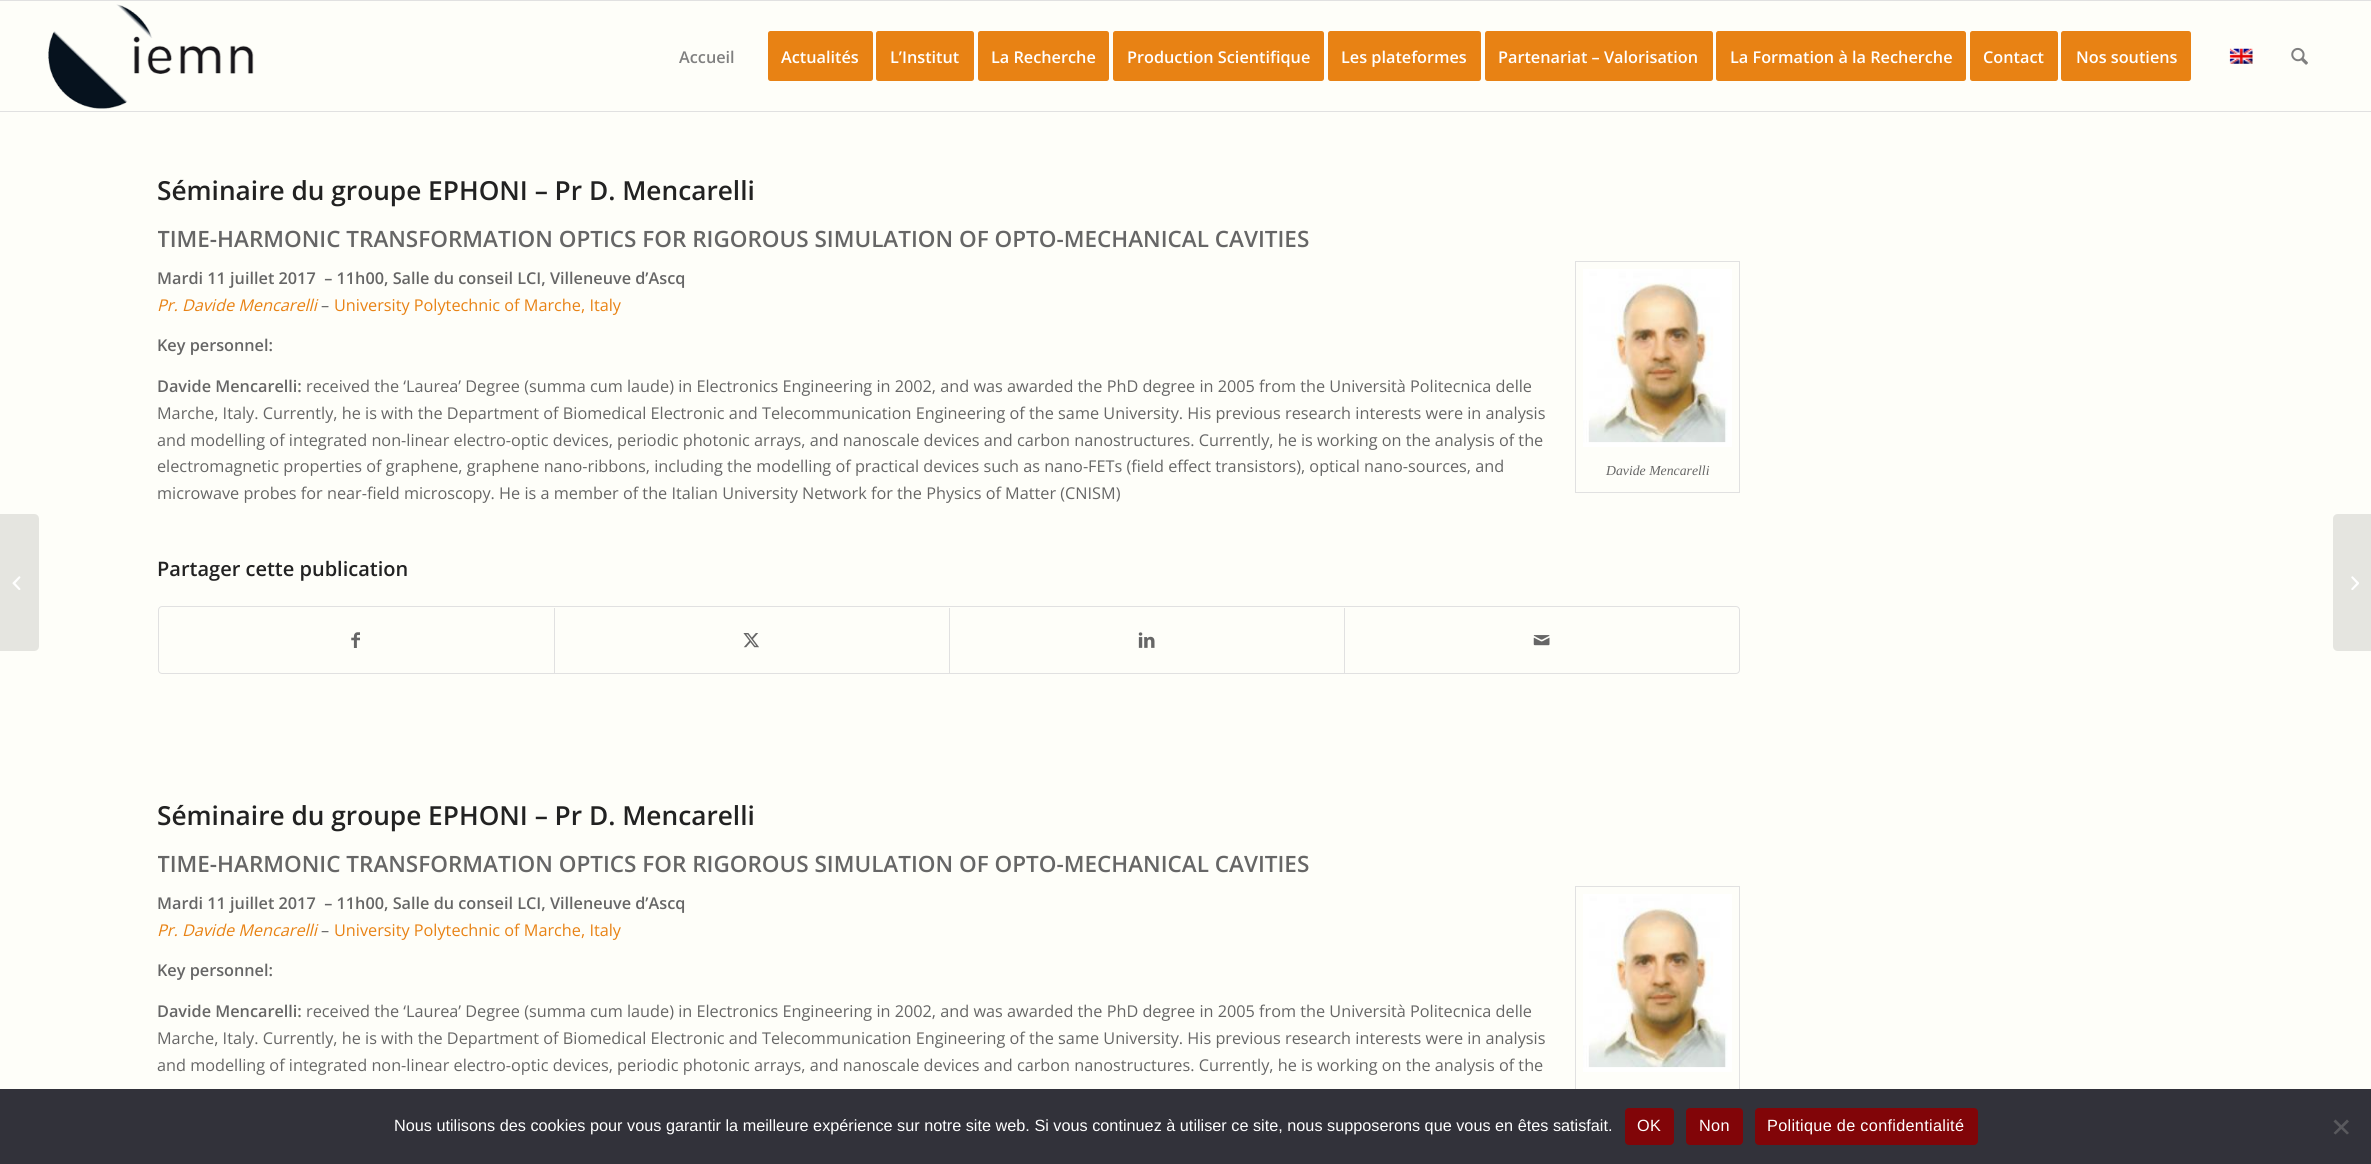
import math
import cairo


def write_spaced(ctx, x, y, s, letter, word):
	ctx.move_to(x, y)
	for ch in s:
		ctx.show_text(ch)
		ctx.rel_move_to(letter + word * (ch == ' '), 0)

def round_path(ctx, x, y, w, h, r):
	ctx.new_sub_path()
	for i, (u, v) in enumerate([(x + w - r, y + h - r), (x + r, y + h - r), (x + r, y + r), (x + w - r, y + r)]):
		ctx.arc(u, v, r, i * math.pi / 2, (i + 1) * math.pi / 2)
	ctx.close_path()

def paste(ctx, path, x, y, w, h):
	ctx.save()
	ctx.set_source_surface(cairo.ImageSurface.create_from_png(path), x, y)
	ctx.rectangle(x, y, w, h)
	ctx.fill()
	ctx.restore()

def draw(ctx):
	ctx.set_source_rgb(0.996, 0.996, 0.976)
	ctx.paint()
	ctx.set_source_rgb(0.882, 0.882, 0.882)
	ctx.rectangle(0, 0, 2371, 1)
	ctx.fill()
	ctx.rectangle(0, 111, 2371, 1)
	ctx.fill()
	paste(ctx, 'media/1.png', 48, 4, 206, 105)
	ctx.select_font_face('Open Sans SemiBold')
	ctx.set_font_size(16.25)
	ctx.set_source_rgb(0.502, 0.502, 0.502)
	ctx.move_to(679, 63)
	ctx.show_text('Accueil')
	ctx.set_source_rgb(0.91, 0.51, 0.082)
	round_path(ctx, 769.5, 32.5, 102, 47, 1)
	ctx.fill_preserve()
	ctx.set_line_width(3)
	ctx.stroke()
	ctx.set_source_rgb(1, 1, 1)
	ctx.move_to(781, 63)
	ctx.show_text('Actualités')
	ctx.set_source_rgb(0.91, 0.51, 0.082)
	round_path(ctx, 877.5, 32.5, 95, 47, 1)
	ctx.fill_preserve()
	ctx.stroke()
	ctx.set_source_rgb(1, 1, 1)
	ctx.move_to(890, 63)
	ctx.show_text('L’Institut')
	ctx.set_source_rgb(0.91, 0.51, 0.082)
	round_path(ctx, 979.5, 32.5, 128, 47, 1)
	ctx.fill_preserve()
	ctx.stroke()
	ctx.set_source_rgb(1, 1, 1)
	ctx.move_to(991, 63)
	ctx.show_text('La Recherche')
	ctx.set_source_rgb(0.91, 0.51, 0.082)
	round_path(ctx, 1114.5, 32.5, 208, 47, 1)
	ctx.fill_preserve()
	ctx.stroke()
	ctx.set_source_rgb(1, 1, 1)
	ctx.move_to(1127, 63)
	ctx.show_text('Production Scientifique')
	ctx.set_source_rgb(0.91, 0.51, 0.082)
	round_path(ctx, 1329.5, 32.5, 150, 47, 1)
	ctx.fill_preserve()
	ctx.stroke()
	ctx.set_source_rgb(1, 1, 1)
	ctx.move_to(1341, 63)
	ctx.show_text('Les plateformes')
	ctx.set_source_rgb(0.91, 0.51, 0.082)
	round_path(ctx, 1486.5, 32.5, 225, 47, 1)
	ctx.fill_preserve()
	ctx.stroke()
	ctx.set_source_rgb(1, 1, 1)
	ctx.move_to(1498, 63)
	ctx.show_text('Partenariat – Valorisation')
	ctx.set_source_rgb(0.91, 0.51, 0.082)
	round_path(ctx, 1717.5, 32.5, 247, 47, 1)
	ctx.fill_preserve()
	ctx.stroke()
	ctx.set_source_rgb(1, 1, 1)
	ctx.move_to(1730, 63)
	ctx.show_text('La Formation à la Recherche')
	ctx.set_source_rgb(0.91, 0.51, 0.082)
	round_path(ctx, 1971.5, 32.5, 85, 47, 1)
	ctx.fill_preserve()
	ctx.stroke()
	ctx.set_source_rgb(1, 1, 1)
	ctx.move_to(1983, 63)
	ctx.show_text('Contact')
	ctx.set_source_rgb(0.91, 0.51, 0.082)
	round_path(ctx, 2062.5, 32.5, 127, 47, 1)
	ctx.fill_preserve()
	ctx.stroke()
	ctx.set_source_rgb(1, 1, 1)
	ctx.move_to(2076, 63)
	ctx.show_text('Nos soutiens')
	paste(ctx, 'media/2.png', 2229, 48, 24, 16)
	paste(ctx, 'media/3.png', 2291, 47, 17, 18)
	ctx.set_source_rgb(0.898, 0.898, 0.878)
	ctx.new_path()
	ctx.move_to(0, 514)
	ctx.line_to(34, 514)
	ctx.curve_to(37, 514, 39, 516, 39, 519)
	ctx.line_to(39, 646)
	ctx.curve_to(39, 649, 37, 651, 34, 651)
	ctx.line_to(0, 651)
	ctx.close_path()
	ctx.fill()
	paste(ctx, 'media/4.png', 12, 576, 9, 14)
	ctx.set_font_size(26.25)
	ctx.set_source_rgb(0.133, 0.133, 0.133)
	ctx.move_to(157, 200)
	ctx.show_text('Séminaire du groupe EPHONI – Pr D. Mencarelli')
	ctx.save()
	ctx.rectangle(158, 174, 1645, 625)
	ctx.clip()
	ctx.set_font_size(22.5)
	ctx.set_source_rgb(0.4, 0.4, 0.4)
	ctx.move_to(157, 247)
	ctx.show_text('TIME-HARMONIC TRANSFORMATION OPTICS FOR RIGOROUS SIMULATION OF OPTO-MECHANICAL CAVITIES')
	ctx.restore()
	ctx.set_font_size(16.25)
	ctx.set_source_rgb(0.4, 0.4, 0.4)
	ctx.move_to(157, 284)
	ctx.show_text('Mardi 11 juillet 2017  – 11h00, Salle du conseil LCI, Villeneuve d’Ascq')
	ctx.select_font_face('Open Sans', cairo.FONT_SLANT_ITALIC)
	ctx.set_source_rgb(0.91, 0.51, 0.082)
	ctx.move_to(157, 311)
	ctx.show_text('Pr. Davide Mencarelli')
	ctx.select_font_face('Open Sans')
	ctx.set_source_rgb(0.4, 0.4, 0.4)
	ctx.move_to(321, 311)
	ctx.show_text('–')
	ctx.set_source_rgb(0.91, 0.51, 0.082)
	ctx.move_to(334, 311)
	ctx.show_text('University Polytechnic of Marche, Italy')
	ctx.select_font_face('Open Sans SemiBold')
	ctx.set_source_rgb(0.4, 0.4, 0.4)
	ctx.move_to(157, 351)
	ctx.show_text('Key personnel:')
	ctx.move_to(157, 392)
	ctx.show_text('Davide Mencarelli:')
	ctx.select_font_face('Open Sans')
	for x, y, s in [
		(306, 392, 'received the ‘Laurea’ Degree (summa cum laude) in Electronics Engineering in 2002, and was awarded the PhD degree in 2005 from the Università Politecnica delle'),
		(157, 419, 'Marche, Italy. Currently, he is with the Department of Biomedical Electronic and Telecommunication Engineering of the same University. His previous research interests were in analysis'),
		(157, 446, 'and modelling of integrated non-linear electro-optic devices, periodic photonic arrays, and nanoscale devices and carbon nanostructures. Currently, he is working on the analysis of the'),
		(157, 472, 'electromagnetic properties of graphene, graphene nano-ribbons, including the modelling of practical devices such as nano-FETs (field effect transistors), optical nano-sources, and'),
		(157, 499, 'microwave probes for near-field microscopy. He is a member of the Italian University Network for the Physics of Matter (CNISM)'),
	]:
		ctx.move_to(x, y)
		ctx.show_text(s)
	ctx.rectangle(1575.5, 261.5, 164, 231)
	ctx.set_source_rgb(0.882, 0.882, 0.882)
	ctx.set_line_width(1)
	ctx.stroke()
	paste(ctx, 'media/5.png', 1583, 269, 149, 178)
	ctx.select_font_face('Liberation Serif', cairo.FONT_SLANT_ITALIC)
	ctx.set_font_size(13.75)
	ctx.set_source_rgb(0.4, 0.4, 0.4)
	ctx.move_to(1606, 475)
	ctx.show_text('Davide Mencarelli')
	ctx.select_font_face('Open Sans SemiBold')
	ctx.set_font_size(20)
	ctx.set_source_rgb(0.133, 0.133, 0.133)
	ctx.move_to(157, 576)
	ctx.show_text('Partager cette publication')
	round_path(ctx, 158.5, 606.5, 1581, 67, 3.5)
	ctx.set_source_rgb(0.882, 0.882, 0.882)
	ctx.stroke()
	paste(ctx, 'media/6.png', 351, 632, 9, 16)
	ctx.rectangle(554, 608, 1, 65)
	ctx.fill()
	paste(ctx, 'media/7.png', 743, 633, 16, 15)
	ctx.rectangle(949, 608, 1, 65)
	ctx.fill()
	paste(ctx, 'media/8.png', 1138, 632, 17, 16)
	ctx.rectangle(1344, 608, 1, 65)
	ctx.fill()
	paste(ctx, 'media/9.png', 1533, 635, 17, 11)
	ctx.set_font_size(26.25)
	ctx.set_source_rgb(0.133, 0.133, 0.133)
	ctx.move_to(157, 825)
	ctx.show_text('Séminaire du groupe EPHONI – Pr D. Mencarelli')
	ctx.save()
	ctx.rectangle(158, 799, 1645, 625)
	ctx.clip()
	ctx.set_font_size(22.5)
	ctx.set_source_rgb(0.4, 0.4, 0.4)
	ctx.move_to(157, 872)
	ctx.show_text('TIME-HARMONIC TRANSFORMATION OPTICS FOR RIGOROUS SIMULATION OF OPTO-MECHANICAL CAVITIES')
	ctx.restore()
	ctx.set_font_size(16.25)
	ctx.set_source_rgb(0.4, 0.4, 0.4)
	ctx.move_to(157, 909)
	ctx.show_text('Mardi 11 juillet 2017  – 11h00, Salle du conseil LCI, Villeneuve d’Ascq')
	ctx.select_font_face('Open Sans', cairo.FONT_SLANT_ITALIC)
	ctx.set_source_rgb(0.91, 0.51, 0.082)
	ctx.move_to(157, 936)
	ctx.show_text('Pr. Davide Mencarelli')
	ctx.select_font_face('Open Sans')
	ctx.set_source_rgb(0.4, 0.4, 0.4)
	ctx.move_to(321, 936)
	ctx.show_text('–')
	ctx.set_source_rgb(0.91, 0.51, 0.082)
	ctx.move_to(334, 936)
	ctx.show_text('University Polytechnic of Marche, Italy')
	ctx.rectangle(1575.5, 886.5, 164, 231)
	ctx.set_source_rgb(0.882, 0.882, 0.882)
	ctx.stroke()
	paste(ctx, 'media/10.png', 1583, 894, 149, 178)
	ctx.select_font_face('Open Sans SemiBold')
	ctx.set_source_rgb(0.4, 0.4, 0.4)
	ctx.move_to(157, 976)
	ctx.show_text('Key personnel:')
	ctx.move_to(157, 1017)
	ctx.show_text('Davide Mencarelli:')
	ctx.select_font_face('Open Sans')
	for x, y, s in [
		(306, 1017, 'received the ‘Laurea’ Degree (summa cum laude) in Electronics Engineering in 2002, and was awarded the PhD degree in 2005 from the Università Politecnica delle'),
		(157, 1044, 'Marche, Italy. Currently, he is with the Department of Biomedical Electronic and Telecommunication Engineering of the same University. His previous research interests were in analysis'),
		(157, 1071, 'and modelling of integrated non-linear electro-optic devices, periodic photonic arrays, and nanoscale devices and carbon nanostructures. Currently, he is working on the analysis of the'),
	]:
		ctx.move_to(x, y)
		ctx.show_text(s)
	ctx.set_source_rgb(0.898, 0.898, 0.878)
	ctx.new_path()
	ctx.move_to(2338, 514)
	ctx.line_to(2371, 514)
	ctx.line_to(2371, 651)
	ctx.line_to(2338, 651)
	ctx.curve_to(2335, 651, 2333, 649, 2333, 646)
	ctx.line_to(2333, 519)
	ctx.curve_to(2333, 516, 2335, 514, 2338, 514)
	ctx.close_path()
	ctx.fill()
	paste(ctx, 'media/11.png', 2351, 576, 8, 14)
	ctx.set_source_rgb(0.196, 0.196, 0.227)
	ctx.rectangle(0, 1089, 2371, 75)
	ctx.fill()
	ctx.select_font_face('Liberation Sans')
	ctx.set_source_rgb(1, 1, 1)
	ctx.move_to(394, 1131)
	ctx.show_text('Nous utilisons des cookies pour vous garantir la meilleure expérience sur notre site web. Si vous continuez à utiliser ce site, nous supposerons que vous en êtes satisfait.')
	ctx.set_source_rgb(0.506, 0.02, 0.035)
	round_path(ctx, 1625, 1108, 49, 37, 4)
	ctx.fill()
	ctx.set_source_rgb(1, 1, 1)
	write_spaced(ctx, 1637, 1131, 'OK', 0.3, 0)
	ctx.set_source_rgb(0.506, 0.02, 0.035)
	round_path(ctx, 1686, 1108, 57, 37, 4)
	ctx.fill()
	ctx.set_source_rgb(1, 1, 1)
	write_spaced(ctx, 1699, 1131, 'Non', 0.3, 0)
	ctx.set_source_rgb(0.506, 0.02, 0.035)
	round_path(ctx, 1755, 1108, 223, 37, 4)
	ctx.fill()
	ctx.set_source_rgb(1, 1, 1)
	write_spaced(ctx, 1767, 1131, 'Politique de confidentialité', 0.3, 0)
	ctx.set_source_rgb(0.349, 0.349, 0.365)
	ctx.new_path()
	ctx.move_to(2347, 1119.5)
	ctx.line_to(2349, 1121.5)
	ctx.line_to(2335.5, 1134.5)
	ctx.line_to(2333.5, 1133)
	ctx.close_path()
	ctx.fill()
	ctx.new_path()
	ctx.move_to(2333.5, 1121.5)
	ctx.line_to(2335.5, 1119.5)
	ctx.line_to(2349, 1133)
	ctx.line_to(2347, 1134.5)
	ctx.close_path()
	ctx.fill()


surface = cairo.ImageSurface(cairo.FORMAT_RGB24, 2371, 1164)
ctx = cairo.Context(surface)
options = cairo.FontOptions()
options.set_hint_metrics(cairo.HINT_METRICS_OFF)
options.set_hint_style(cairo.HINT_STYLE_NONE)
ctx.set_font_options(options)
ctx.set_miter_limit(4)
draw(ctx)
surface.write_to_png('image.png')
